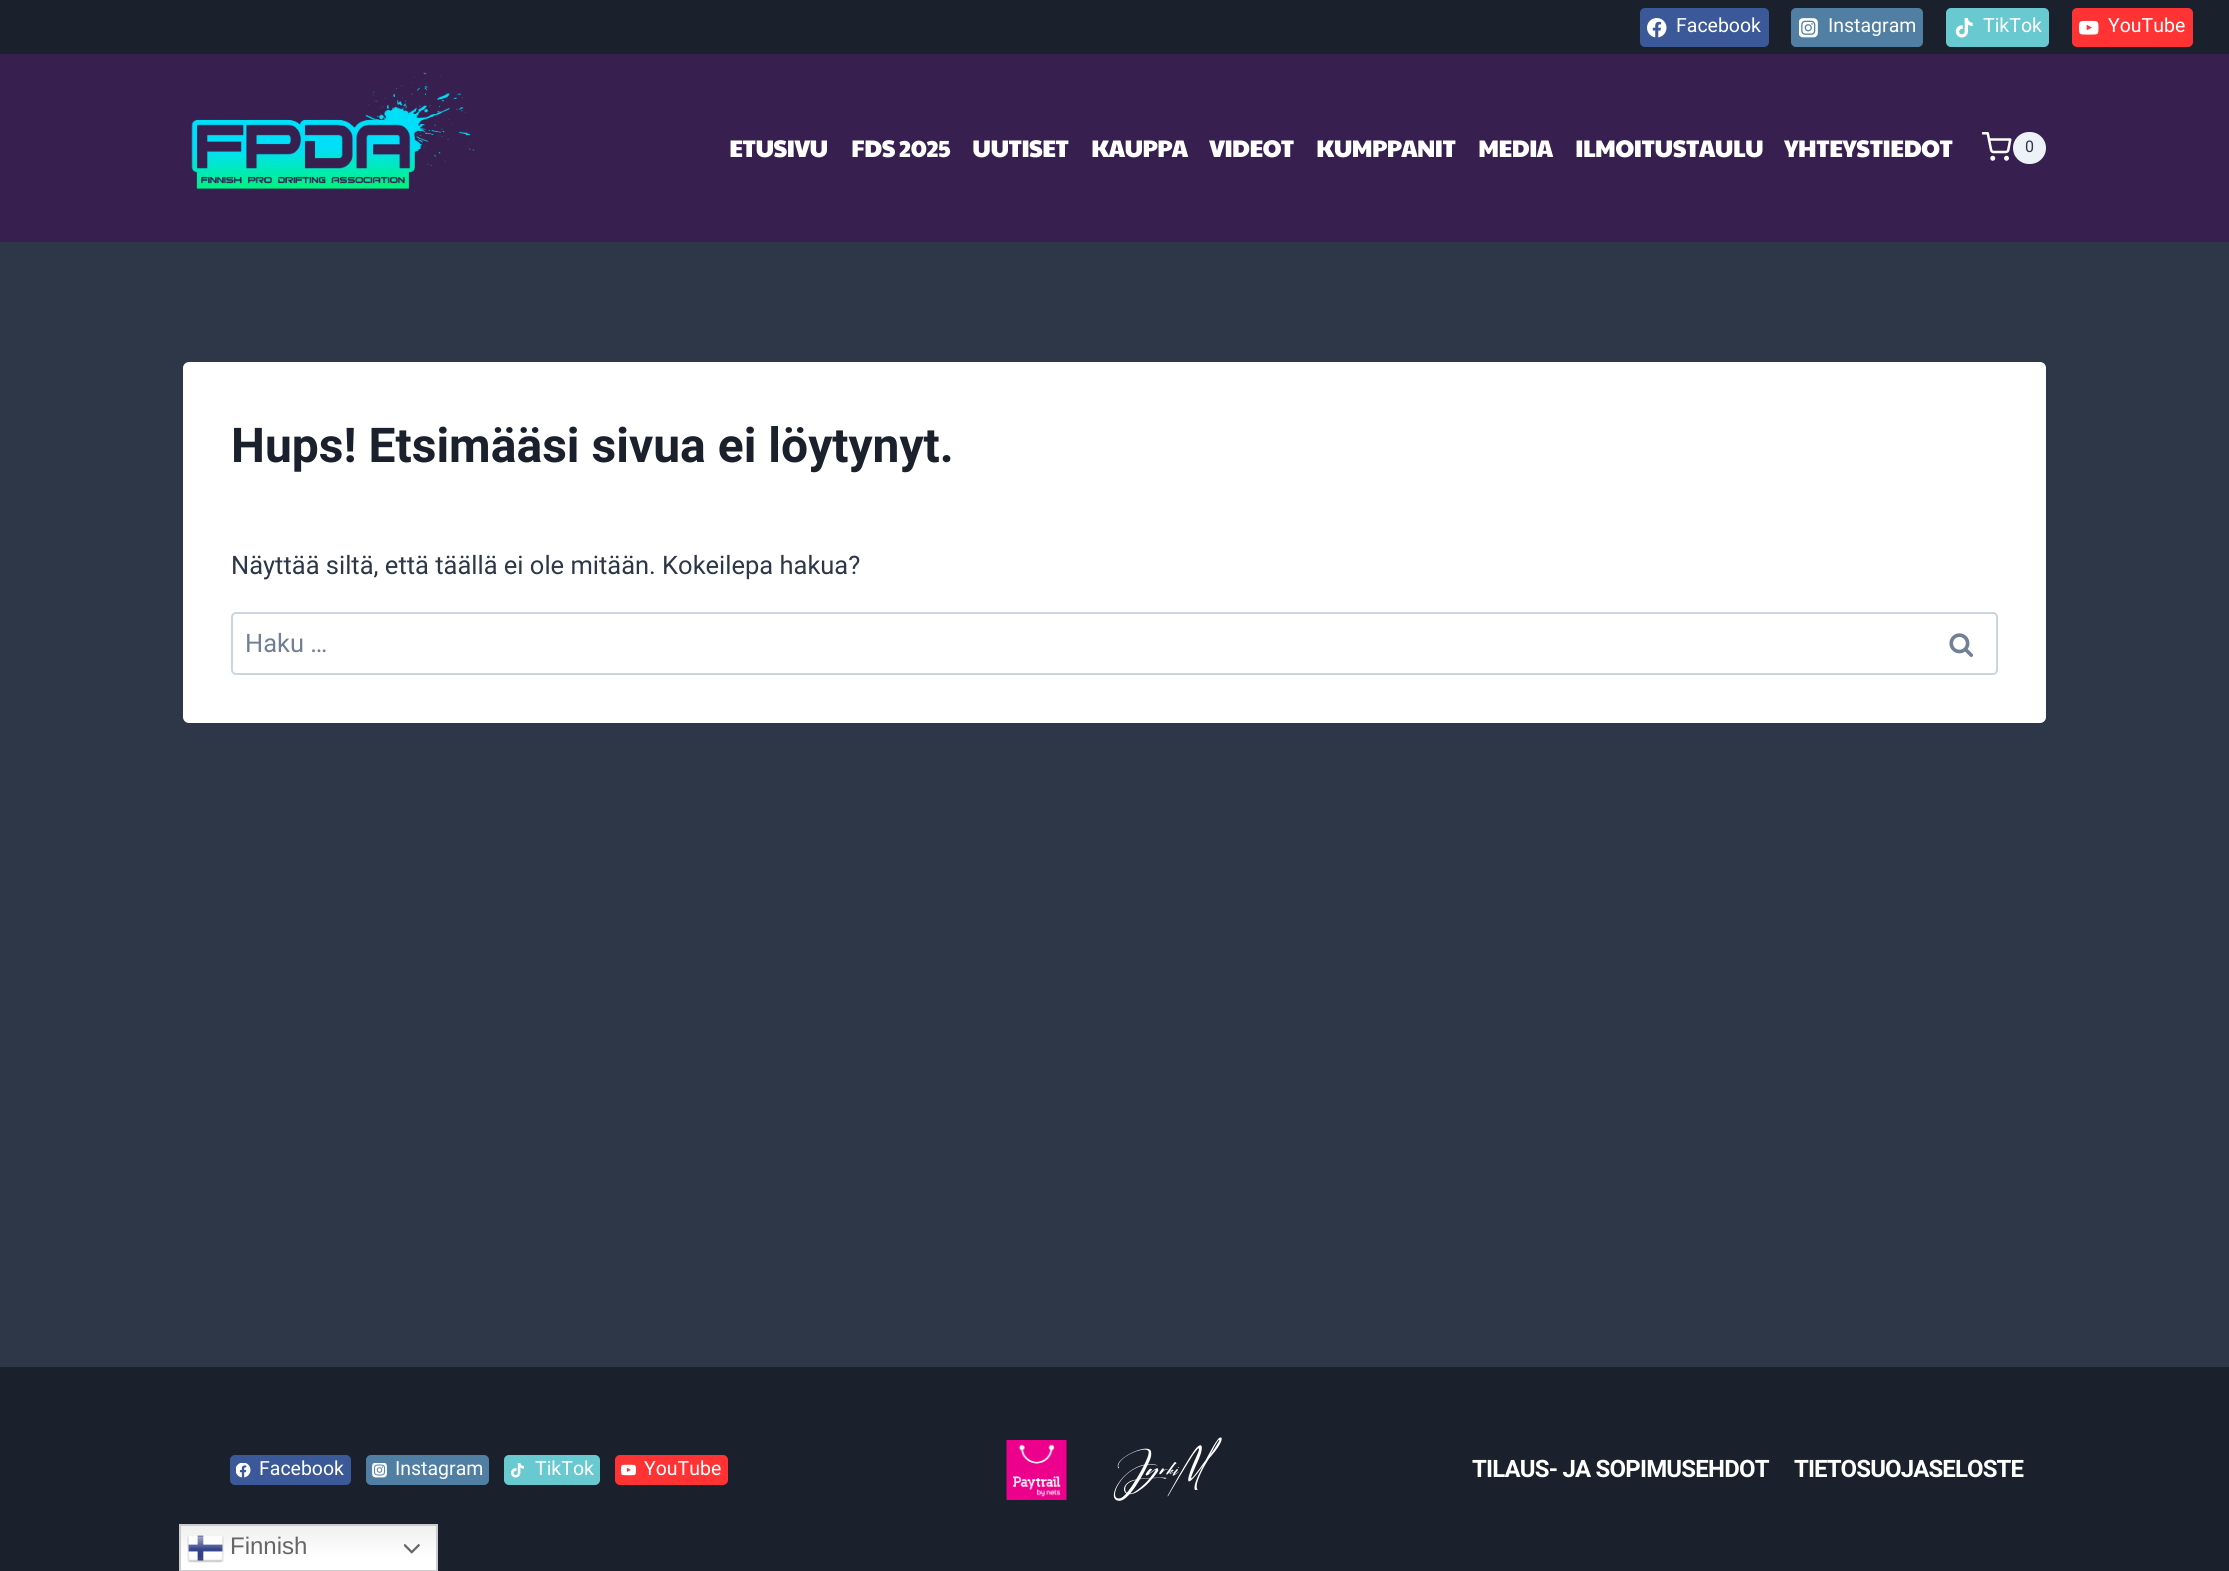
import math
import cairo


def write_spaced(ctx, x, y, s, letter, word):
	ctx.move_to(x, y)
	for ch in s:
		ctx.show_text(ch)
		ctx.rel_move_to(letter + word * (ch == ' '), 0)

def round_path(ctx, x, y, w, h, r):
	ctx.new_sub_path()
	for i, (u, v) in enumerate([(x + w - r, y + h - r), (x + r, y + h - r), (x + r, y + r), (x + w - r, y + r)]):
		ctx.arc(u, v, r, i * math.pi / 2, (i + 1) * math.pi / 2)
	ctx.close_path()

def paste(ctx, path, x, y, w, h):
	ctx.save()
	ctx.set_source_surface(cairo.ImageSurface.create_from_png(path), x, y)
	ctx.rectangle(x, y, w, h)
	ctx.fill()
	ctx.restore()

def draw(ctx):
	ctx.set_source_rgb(0.176, 0.216, 0.282)
	ctx.paint()
	ctx.set_source_rgb(0.102, 0.125, 0.173)
	ctx.rectangle(0, 0, 2229, 54)
	ctx.fill()
	ctx.set_source_rgb(0.231, 0.349, 0.596)
	round_path(ctx, 1640, 8, 129, 39, 5)
	ctx.fill()
	paste(ctx, 'media/1.png', 1647, 18, 20, 20)
	ctx.select_font_face('Roboto')
	ctx.set_font_size(19.5)
	ctx.set_source_rgb(1, 1, 1)
	ctx.move_to(1676, 32)
	ctx.show_text('Facebook')
	ctx.set_source_rgb(0.318, 0.498, 0.643)
	round_path(ctx, 1791, 8, 132, 39, 5)
	ctx.fill()
	paste(ctx, 'media/2.png', 1799, 18, 19, 20)
	ctx.set_source_rgb(1, 1, 1)
	ctx.move_to(1828, 32)
	ctx.show_text('Instagram')
	ctx.set_source_rgb(0.412, 0.788, 0.816)
	round_path(ctx, 1946, 8, 103, 39, 5)
	ctx.fill()
	paste(ctx, 'media/3.png', 1955, 18, 18, 20)
	ctx.set_source_rgb(1, 1, 1)
	ctx.move_to(1983, 32)
	ctx.show_text('TikTok')
	ctx.set_source_rgb(1, 0.2, 0.2)
	round_path(ctx, 2072, 8, 121, 39, 5)
	ctx.fill()
	paste(ctx, 'media/4.png', 2079, 20, 20, 15)
	ctx.set_source_rgb(1, 1, 1)
	ctx.move_to(2108, 32)
	ctx.show_text('YouTube')
	ctx.set_source_rgb(0.216, 0.122, 0.31)
	ctx.rectangle(0, 54, 2229, 188)
	ctx.fill()
	paste(ctx, 'media/5.png', 191, 69, 284, 121)
	ctx.select_font_face('Paytone One')
	ctx.set_font_size(24)
	ctx.set_source_rgb(1, 1, 1)
	write_spaced(ctx, 729, 157, 'ETUSIVU', -1, 0)
	write_spaced(ctx, 851, 157, 'FDS 2025', -0.75, 0)
	for x, y, s in [
		(972, 157, 'UUTISET'),
		(1091, 157, 'KAUPPA'),
		(1209, 157, 'VIDEOT'),
		(1316, 157, 'KUMPPANIT'),
		(1478, 157, 'MEDIA'),
	]:
		write_spaced(ctx, x, y, s, -1, 0)
	write_spaced(ctx, 1575, 157, 'ILMOITUSTAULU', -0.9, 0)
	write_spaced(ctx, 1784, 157, 'YHTEYSTIEDOT', -0.9, 0)
	paste(ctx, 'media/6.png', 1982, 132, 30, 29)
	ctx.set_source_rgb(0.929, 0.949, 0.969)
	round_path(ctx, 2013, 132, 33, 32, 16)
	ctx.fill()
	ctx.select_font_face('Roboto')
	ctx.set_font_size(16)
	ctx.set_source_rgb(0.176, 0.216, 0.282)
	ctx.move_to(2025, 152)
	ctx.show_text('0')
	ctx.set_source_rgb(1, 1, 1)
	round_path(ctx, 183, 362, 1863, 361, 6)
	ctx.fill()
	ctx.select_font_face('Roboto', cairo.FONT_SLANT_NORMAL, cairo.FONT_WEIGHT_BOLD)
	ctx.set_font_size(48)
	ctx.set_source_rgb(0.102, 0.125, 0.173)
	ctx.move_to(231, 462)
	ctx.show_text('Hups! Etsimääsi sivua ei löytynyt.')
	ctx.select_font_face('Roboto')
	ctx.set_font_size(25.5)
	ctx.set_source_rgb(0.176, 0.216, 0.282)
	ctx.move_to(231, 574)
	ctx.show_text('Näyttää siltä, että täällä ei ole mitään. Kokeilepa hakua?')
	round_path(ctx, 232, 613, 1765, 61, 4)
	ctx.set_source_rgb(0.796, 0.835, 0.878)
	ctx.stroke()
	ctx.set_source_rgb(0.443, 0.502, 0.588)
	ctx.move_to(245, 652)
	ctx.show_text('Haku …')
	paste(ctx, 'media/7.png', 1949, 633, 25, 24)
	ctx.set_source_rgb(0.102, 0.125, 0.173)
	ctx.rectangle(0, 1367, 2229, 204)
	ctx.fill()
	ctx.set_source_rgb(0.231, 0.349, 0.596)
	round_path(ctx, 230, 1455, 121, 30, 5)
	ctx.fill()
	paste(ctx, 'media/8.png', 236, 1463, 15, 15)
	ctx.set_font_size(19.5)
	ctx.set_source_rgb(1, 1, 1)
	ctx.move_to(259, 1475)
	ctx.show_text('Facebook')
	ctx.set_source_rgb(0.318, 0.498, 0.643)
	round_path(ctx, 366, 1455, 123, 30, 5)
	ctx.fill()
	paste(ctx, 'media/9.png', 372, 1463, 15, 15)
	ctx.set_source_rgb(1, 1, 1)
	ctx.move_to(395, 1475)
	ctx.show_text('Instagram')
	ctx.set_source_rgb(0.412, 0.788, 0.816)
	round_path(ctx, 504, 1455, 96, 30, 5)
	ctx.fill()
	paste(ctx, 'media/10.png', 511, 1463, 13, 15)
	ctx.set_source_rgb(1, 1, 1)
	ctx.move_to(535, 1475)
	ctx.show_text('TikTok')
	ctx.set_source_rgb(1, 0.2, 0.2)
	round_path(ctx, 615, 1455, 113, 30, 5)
	ctx.fill()
	paste(ctx, 'media/11.png', 621, 1464, 15, 12)
	ctx.set_source_rgb(1, 1, 1)
	ctx.move_to(644, 1475)
	ctx.show_text('YouTube')
	paste(ctx, 'media/12.png', 1006, 1440, 61, 60)
	paste(ctx, 'media/13.png', 1113, 1437, 109, 64)
	ctx.select_font_face('Roboto', cairo.FONT_SLANT_NORMAL, cairo.FONT_WEIGHT_BOLD)
	ctx.set_font_size(24)
	write_spaced(ctx, 1472, 1477, 'TILAUS- JA SOPIMUSEHDOT', -0.8, 0)
	write_spaced(ctx, 1794, 1477, 'TIETOSUOJASELOSTE', -0.9, 0)
	gradient = cairo.LinearGradient(308, 1524, 308, 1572)
	gradient.add_color_stop_rgba(0, 0.937, 0.937, 0.937, 1)
	gradient.add_color_stop_rgba(0.7, 1, 1, 1, 1)
	ctx.set_source(gradient)
	ctx.rectangle(181, 1526, 255, 44)
	ctx.fill()
	ctx.rectangle(180, 1525, 257, 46)
	ctx.set_source_rgb(0.8, 0.8, 0.8)
	ctx.stroke()
	paste(ctx, 'media/14.png', 187, 1535, 37, 28)
	ctx.select_font_face('Liberation Sans')
	ctx.set_source_rgb(0.4, 0.4, 0.4)
	ctx.move_to(230, 1554)
	ctx.show_text('Finnish')
	paste(ctx, 'media/15.png', 404, 1544, 16, 10)


surface = cairo.ImageSurface(cairo.FORMAT_RGB24, 2229, 1571)
ctx = cairo.Context(surface)
options = cairo.FontOptions()
options.set_hint_metrics(cairo.HINT_METRICS_OFF)
options.set_hint_style(cairo.HINT_STYLE_NONE)
ctx.set_font_options(options)
ctx.set_miter_limit(4)
draw(ctx)
surface.write_to_png('image.png')
